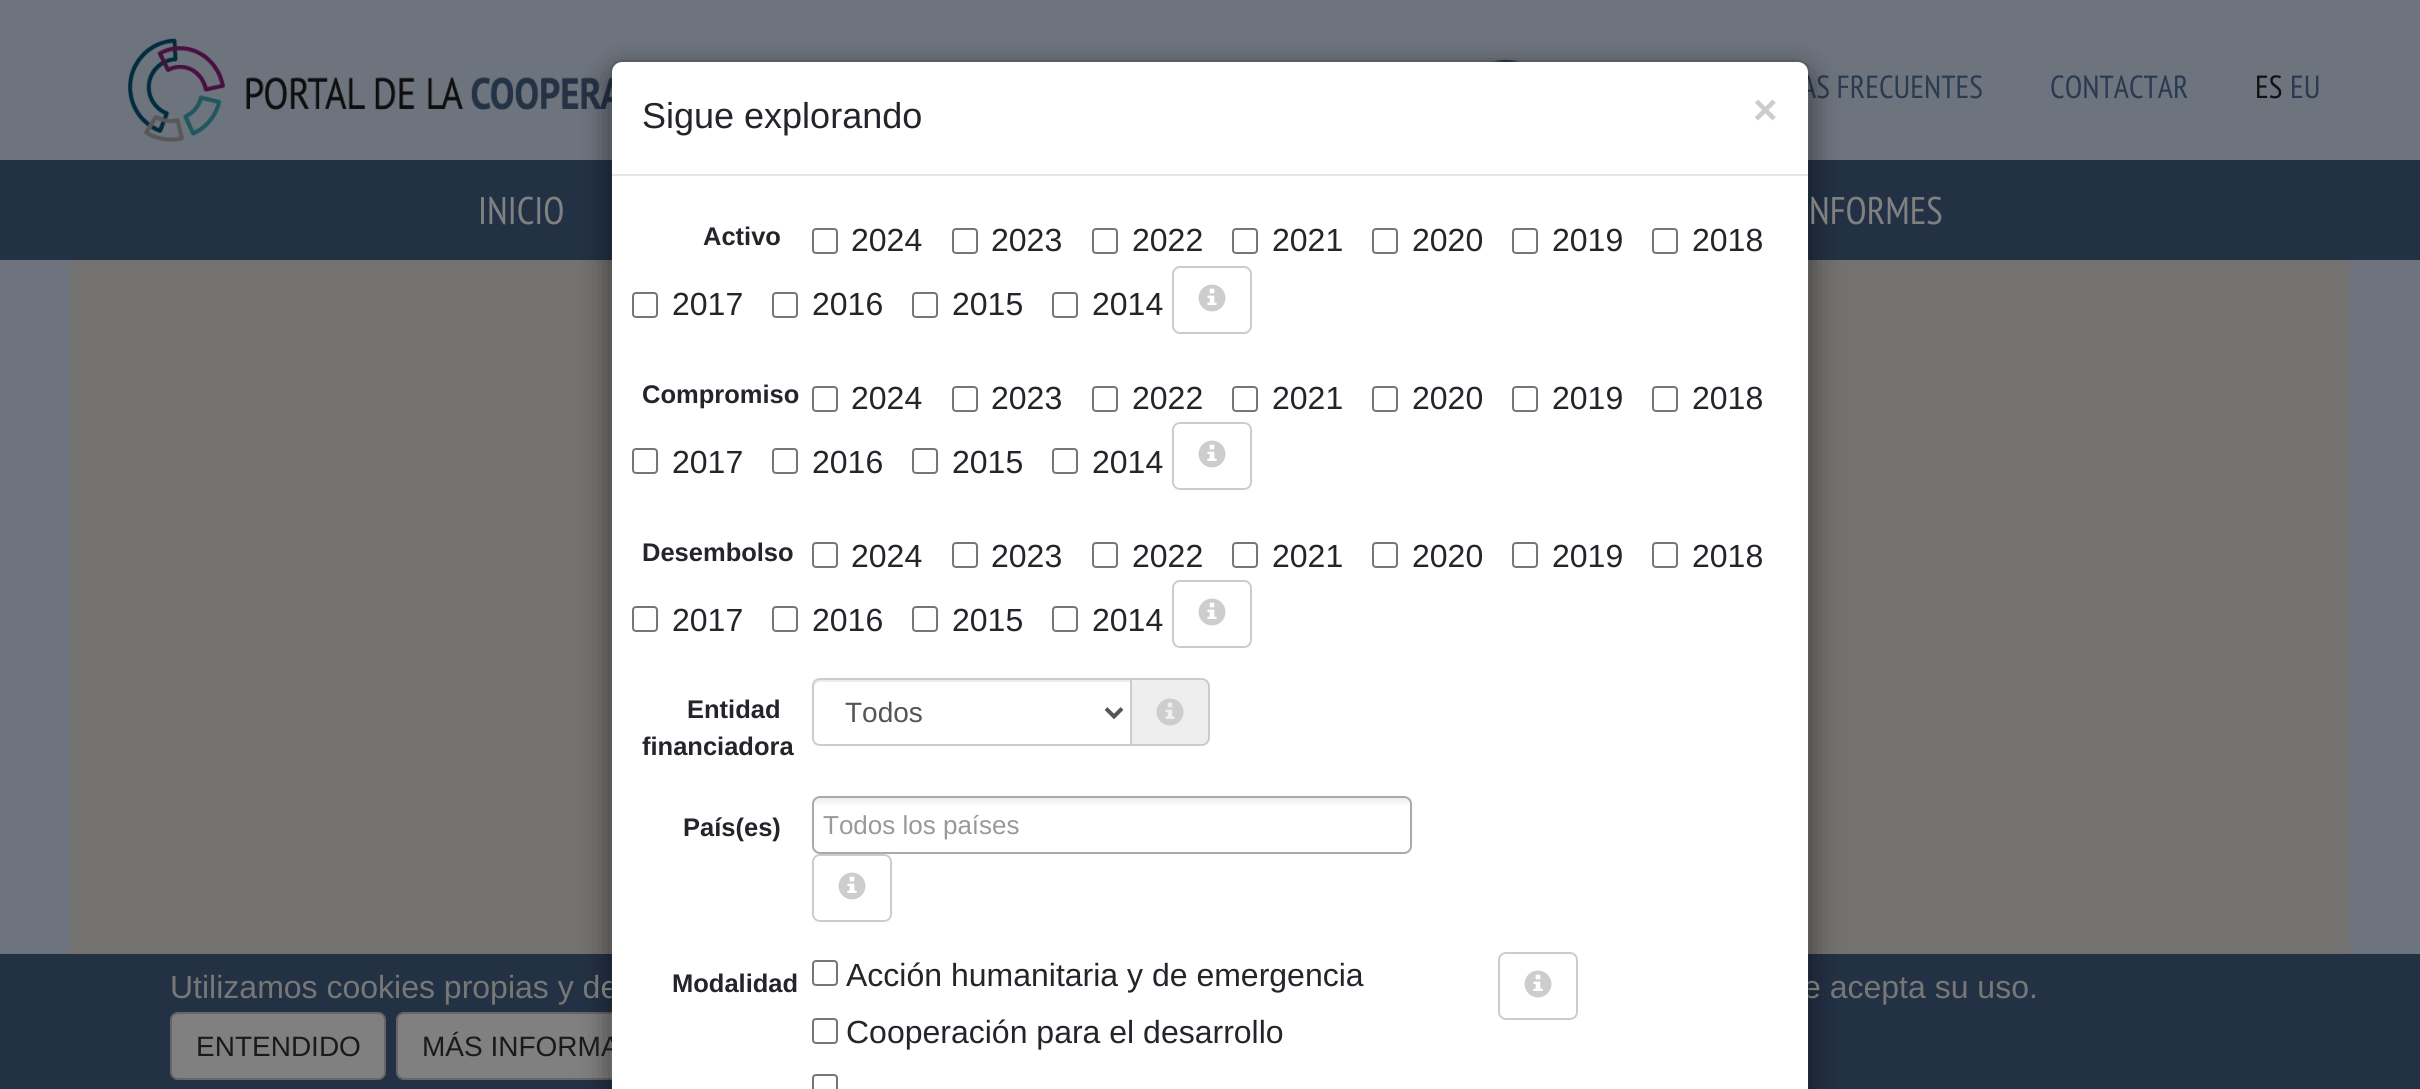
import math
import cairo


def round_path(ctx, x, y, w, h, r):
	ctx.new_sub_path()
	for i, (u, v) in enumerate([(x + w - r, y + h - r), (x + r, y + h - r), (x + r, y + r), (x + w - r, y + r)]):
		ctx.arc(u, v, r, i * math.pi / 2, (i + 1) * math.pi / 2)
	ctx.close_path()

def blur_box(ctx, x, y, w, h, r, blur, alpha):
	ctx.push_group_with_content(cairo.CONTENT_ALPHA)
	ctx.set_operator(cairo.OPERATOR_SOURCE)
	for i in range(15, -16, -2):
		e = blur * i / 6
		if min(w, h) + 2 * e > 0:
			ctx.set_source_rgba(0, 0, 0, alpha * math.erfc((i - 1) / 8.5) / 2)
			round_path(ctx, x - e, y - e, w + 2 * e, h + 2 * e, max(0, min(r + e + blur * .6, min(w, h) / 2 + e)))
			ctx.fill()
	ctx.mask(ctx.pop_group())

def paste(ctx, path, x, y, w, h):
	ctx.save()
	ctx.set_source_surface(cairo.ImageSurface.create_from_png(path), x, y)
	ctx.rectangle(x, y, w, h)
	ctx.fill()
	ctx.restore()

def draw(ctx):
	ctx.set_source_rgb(0.431, 0.455, 0.49)
	ctx.paint()
	paste(ctx, 'media/1.png', 127, 38, 485, 104)
	paste(ctx, 'media/2.png', 1491, 60, 30, 2)
	ctx.select_font_face('PT Sans Narrow')
	ctx.set_font_size(32)
	ctx.set_source_rgb(0.165, 0.231, 0.318)
	ctx.move_to(1801, 98)
	ctx.show_text('AS FRECUENTES')
	ctx.move_to(2050, 98)
	ctx.show_text('CONTACTAR')
	ctx.set_source_rgb(0.071, 0.071, 0.082)
	ctx.move_to(2255, 98)
	ctx.show_text('ES')
	ctx.set_source_rgb(0.165, 0.231, 0.318)
	ctx.move_to(2290, 98)
	ctx.show_text('EU')
	ctx.set_source_rgb(0.451, 0.447, 0.439)
	ctx.rectangle(70, 260, 2280, 694)
	ctx.fill()
	ctx.set_source_rgb(0.137, 0.192, 0.271)
	ctx.rectangle(0, 160, 2420, 100)
	ctx.rectangle(0, 954, 2420, 135)
	ctx.fill()
	ctx.set_source_rgb(0.502, 0.502, 0.502)
	round_path(ctx, 397, 1013, 318, 66, 7)
	ctx.fill_preserve()
	ctx.set_source_rgb(0.4, 0.4, 0.4)
	ctx.stroke()
	ctx.save()
	ctx.set_fill_rule(cairo.FILL_RULE_EVEN_ODD)
	ctx.new_path()
	ctx.move_to(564, 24)
	ctx.line_to(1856, 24)
	ctx.line_to(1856, 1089)
	ctx.line_to(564, 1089)
	ctx.close_path()
	ctx.move_to(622, 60)
	ctx.line_to(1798, 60)
	ctx.curve_to(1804.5, 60, 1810, 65.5, 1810, 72)
	ctx.line_to(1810, 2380)
	ctx.curve_to(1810, 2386.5, 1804.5, 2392, 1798, 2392)
	ctx.line_to(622, 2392)
	ctx.curve_to(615.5, 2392, 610, 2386.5, 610, 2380)
	ctx.line_to(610, 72)
	ctx.curve_to(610, 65.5, 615.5, 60, 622, 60)
	ctx.close_path()
	ctx.clip()
	ctx.set_source_rgb(0, 0, 0)
	blur_box(ctx, 610, 70, 1200, 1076, 12, 15, 0.5)
	ctx.restore()
	ctx.select_font_face('Liberation Sans')
	ctx.set_source_rgb(0.467, 0.467, 0.467)
	ctx.move_to(170, 998)
	ctx.show_text('Utilizamos cookies propias y de')
	ctx.move_to(1803, 998)
	ctx.show_text('e acepta su uso.')
	ctx.set_font_size(28)
	ctx.set_source_rgb(0.102, 0.102, 0.102)
	ctx.move_to(422, 1056)
	ctx.show_text('MÁS INFORMA')
	ctx.set_source_rgb(1, 1, 1)
	ctx.new_path()
	ctx.move_to(622, 62)
	ctx.line_to(1798, 62)
	ctx.curve_to(1803.5, 62, 1808, 66.5, 1808, 72)
	ctx.line_to(1808, 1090)
	ctx.line_to(612, 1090)
	ctx.line_to(612, 72)
	ctx.curve_to(612, 66.5, 616.5, 62, 622, 62)
	ctx.close_path()
	ctx.fill()
	round_path(ctx, 611, 61, 1198, 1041, 11)
	ctx.set_source_rgba(0, 0, 0, 0.2)
	ctx.stroke()
	ctx.set_source_rgb(0.898, 0.898, 0.898)
	ctx.rectangle(612, 174, 1196, 2)
	ctx.fill()
	ctx.set_font_size(36)
	ctx.set_source_rgb(0.141, 0.141, 0.165)
	ctx.move_to(642, 128)
	ctx.show_text('Sigue explorando')
	ctx.select_font_face('Liberation Sans', cairo.FONT_SLANT_NORMAL, cairo.FONT_WEIGHT_BOLD)
	ctx.set_font_size(42)
	ctx.set_source_rgb(0.8, 0.8, 0.8)
	ctx.move_to(1753, 124)
	ctx.show_text('×')
	ctx.set_font_size(25.5)
	ctx.set_source_rgb(0.141, 0.141, 0.165)
	ctx.move_to(703, 245)
	ctx.show_text('Activo')
	round_path(ctx, 813, 229, 24, 24, 3)
	ctx.set_source_rgb(0.463, 0.463, 0.463)
	ctx.stroke()
	ctx.select_font_face('Liberation Sans')
	ctx.set_font_size(32)
	ctx.set_source_rgb(0.141, 0.141, 0.165)
	ctx.move_to(851, 251)
	ctx.show_text('2024')
	round_path(ctx, 953, 229, 24, 24, 3)
	ctx.set_source_rgb(0.463, 0.463, 0.463)
	ctx.stroke()
	ctx.set_source_rgb(0.141, 0.141, 0.165)
	ctx.move_to(991, 251)
	ctx.show_text('2023')
	round_path(ctx, 1093, 229, 24, 24, 3)
	ctx.set_source_rgb(0.463, 0.463, 0.463)
	ctx.stroke()
	ctx.set_source_rgb(0.141, 0.141, 0.165)
	ctx.move_to(1132, 251)
	ctx.show_text('2022')
	round_path(ctx, 1233, 229, 24, 24, 3)
	ctx.set_source_rgb(0.463, 0.463, 0.463)
	ctx.stroke()
	ctx.set_source_rgb(0.141, 0.141, 0.165)
	ctx.move_to(1272, 251)
	ctx.show_text('2021')
	round_path(ctx, 1373, 229, 24, 24, 3)
	ctx.set_source_rgb(0.463, 0.463, 0.463)
	ctx.stroke()
	ctx.set_source_rgb(0.141, 0.141, 0.165)
	ctx.move_to(1412, 251)
	ctx.show_text('2020')
	round_path(ctx, 1513, 229, 24, 24, 3)
	ctx.set_source_rgb(0.463, 0.463, 0.463)
	ctx.stroke()
	ctx.set_source_rgb(0.141, 0.141, 0.165)
	ctx.move_to(1552, 251)
	ctx.show_text('2019')
	round_path(ctx, 1653, 229, 24, 24, 3)
	ctx.set_source_rgb(0.463, 0.463, 0.463)
	ctx.stroke()
	ctx.set_source_rgb(0.141, 0.141, 0.165)
	ctx.move_to(1692, 251)
	ctx.show_text('2018')
	round_path(ctx, 633, 293, 24, 24, 3)
	ctx.set_source_rgb(0.463, 0.463, 0.463)
	ctx.stroke()
	ctx.set_source_rgb(0.141, 0.141, 0.165)
	ctx.move_to(672, 315)
	ctx.show_text('2017')
	round_path(ctx, 773, 293, 24, 24, 3)
	ctx.set_source_rgb(0.463, 0.463, 0.463)
	ctx.stroke()
	ctx.set_source_rgb(0.141, 0.141, 0.165)
	ctx.move_to(812, 315)
	ctx.show_text('2016')
	round_path(ctx, 913, 293, 24, 24, 3)
	ctx.set_source_rgb(0.463, 0.463, 0.463)
	ctx.stroke()
	ctx.set_source_rgb(0.141, 0.141, 0.165)
	ctx.move_to(952, 315)
	ctx.show_text('2015')
	round_path(ctx, 1053, 293, 24, 24, 3)
	ctx.set_source_rgb(0.463, 0.463, 0.463)
	ctx.stroke()
	ctx.set_source_rgb(0.141, 0.141, 0.165)
	ctx.move_to(1092, 315)
	ctx.show_text('2014')
	round_path(ctx, 1173, 267, 78, 66, 7)
	ctx.set_source_rgb(0.8, 0.8, 0.8)
	ctx.stroke()
	paste(ctx, 'media/3.png', 1198, 284, 28, 28)
	ctx.select_font_face('Liberation Sans', cairo.FONT_SLANT_NORMAL, cairo.FONT_WEIGHT_BOLD)
	ctx.set_font_size(25.5)
	ctx.set_source_rgb(0.141, 0.141, 0.165)
	ctx.move_to(642, 403)
	ctx.show_text('Compromiso')
	round_path(ctx, 813, 387, 24, 24, 3)
	ctx.set_source_rgb(0.463, 0.463, 0.463)
	ctx.stroke()
	ctx.select_font_face('Liberation Sans')
	ctx.set_font_size(32)
	ctx.set_source_rgb(0.141, 0.141, 0.165)
	ctx.move_to(851, 409)
	ctx.show_text('2024')
	round_path(ctx, 953, 387, 24, 24, 3)
	ctx.set_source_rgb(0.463, 0.463, 0.463)
	ctx.stroke()
	ctx.set_source_rgb(0.141, 0.141, 0.165)
	ctx.move_to(991, 409)
	ctx.show_text('2023')
	round_path(ctx, 1093, 387, 24, 24, 3)
	ctx.set_source_rgb(0.463, 0.463, 0.463)
	ctx.stroke()
	ctx.set_source_rgb(0.141, 0.141, 0.165)
	ctx.move_to(1132, 409)
	ctx.show_text('2022')
	round_path(ctx, 1233, 387, 24, 24, 3)
	ctx.set_source_rgb(0.463, 0.463, 0.463)
	ctx.stroke()
	ctx.set_source_rgb(0.141, 0.141, 0.165)
	ctx.move_to(1272, 409)
	ctx.show_text('2021')
	round_path(ctx, 1373, 387, 24, 24, 3)
	ctx.set_source_rgb(0.463, 0.463, 0.463)
	ctx.stroke()
	ctx.set_source_rgb(0.141, 0.141, 0.165)
	ctx.move_to(1412, 409)
	ctx.show_text('2020')
	round_path(ctx, 1513, 387, 24, 24, 3)
	ctx.set_source_rgb(0.463, 0.463, 0.463)
	ctx.stroke()
	ctx.set_source_rgb(0.141, 0.141, 0.165)
	ctx.move_to(1552, 409)
	ctx.show_text('2019')
	round_path(ctx, 1653, 387, 24, 24, 3)
	ctx.set_source_rgb(0.463, 0.463, 0.463)
	ctx.stroke()
	ctx.set_source_rgb(0.141, 0.141, 0.165)
	ctx.move_to(1692, 409)
	ctx.show_text('2018')
	round_path(ctx, 633, 449, 24, 24, 3)
	ctx.set_source_rgb(0.463, 0.463, 0.463)
	ctx.stroke()
	ctx.set_source_rgb(0.141, 0.141, 0.165)
	ctx.move_to(672, 473)
	ctx.show_text('2017')
	round_path(ctx, 773, 449, 24, 24, 3)
	ctx.set_source_rgb(0.463, 0.463, 0.463)
	ctx.stroke()
	ctx.set_source_rgb(0.141, 0.141, 0.165)
	ctx.move_to(812, 473)
	ctx.show_text('2016')
	round_path(ctx, 913, 449, 24, 24, 3)
	ctx.set_source_rgb(0.463, 0.463, 0.463)
	ctx.stroke()
	ctx.set_source_rgb(0.141, 0.141, 0.165)
	ctx.move_to(952, 473)
	ctx.show_text('2015')
	round_path(ctx, 1053, 449, 24, 24, 3)
	ctx.set_source_rgb(0.463, 0.463, 0.463)
	ctx.stroke()
	ctx.set_source_rgb(0.141, 0.141, 0.165)
	ctx.move_to(1092, 473)
	ctx.show_text('2014')
	round_path(ctx, 1173, 423, 78, 66, 7)
	ctx.set_source_rgb(0.8, 0.8, 0.8)
	ctx.stroke()
	paste(ctx, 'media/3.png', 1198, 440, 28, 28)
	ctx.select_font_face('Liberation Sans', cairo.FONT_SLANT_NORMAL, cairo.FONT_WEIGHT_BOLD)
	ctx.set_font_size(25.5)
	ctx.set_source_rgb(0.141, 0.141, 0.165)
	ctx.move_to(642, 561)
	ctx.show_text('Desembolso')
	round_path(ctx, 813, 543, 24, 24, 3)
	ctx.set_source_rgb(0.463, 0.463, 0.463)
	ctx.stroke()
	ctx.select_font_face('Liberation Sans')
	ctx.set_font_size(32)
	ctx.set_source_rgb(0.141, 0.141, 0.165)
	ctx.move_to(851, 567)
	ctx.show_text('2024')
	round_path(ctx, 953, 543, 24, 24, 3)
	ctx.set_source_rgb(0.463, 0.463, 0.463)
	ctx.stroke()
	ctx.set_source_rgb(0.141, 0.141, 0.165)
	ctx.move_to(991, 567)
	ctx.show_text('2023')
	round_path(ctx, 1093, 543, 24, 24, 3)
	ctx.set_source_rgb(0.463, 0.463, 0.463)
	ctx.stroke()
	ctx.set_source_rgb(0.141, 0.141, 0.165)
	ctx.move_to(1132, 567)
	ctx.show_text('2022')
	round_path(ctx, 1233, 543, 24, 24, 3)
	ctx.set_source_rgb(0.463, 0.463, 0.463)
	ctx.stroke()
	ctx.set_source_rgb(0.141, 0.141, 0.165)
	ctx.move_to(1272, 567)
	ctx.show_text('2021')
	round_path(ctx, 1373, 543, 24, 24, 3)
	ctx.set_source_rgb(0.463, 0.463, 0.463)
	ctx.stroke()
	ctx.set_source_rgb(0.141, 0.141, 0.165)
	ctx.move_to(1412, 567)
	ctx.show_text('2020')
	round_path(ctx, 1513, 543, 24, 24, 3)
	ctx.set_source_rgb(0.463, 0.463, 0.463)
	ctx.stroke()
	ctx.set_source_rgb(0.141, 0.141, 0.165)
	ctx.move_to(1552, 567)
	ctx.show_text('2019')
	round_path(ctx, 1653, 543, 24, 24, 3)
	ctx.set_source_rgb(0.463, 0.463, 0.463)
	ctx.stroke()
	ctx.set_source_rgb(0.141, 0.141, 0.165)
	ctx.move_to(1692, 567)
	ctx.show_text('2018')
	round_path(ctx, 633, 607, 24, 24, 3)
	ctx.set_source_rgb(0.463, 0.463, 0.463)
	ctx.stroke()
	ctx.set_source_rgb(0.141, 0.141, 0.165)
	ctx.move_to(672, 631)
	ctx.show_text('2017')
	round_path(ctx, 773, 607, 24, 24, 3)
	ctx.set_source_rgb(0.463, 0.463, 0.463)
	ctx.stroke()
	ctx.set_source_rgb(0.141, 0.141, 0.165)
	ctx.move_to(812, 631)
	ctx.show_text('2016')
	round_path(ctx, 913, 607, 24, 24, 3)
	ctx.set_source_rgb(0.463, 0.463, 0.463)
	ctx.stroke()
	ctx.set_source_rgb(0.141, 0.141, 0.165)
	ctx.move_to(952, 631)
	ctx.show_text('2015')
	round_path(ctx, 1053, 607, 24, 24, 3)
	ctx.set_source_rgb(0.463, 0.463, 0.463)
	ctx.stroke()
	ctx.set_source_rgb(0.141, 0.141, 0.165)
	ctx.move_to(1092, 631)
	ctx.show_text('2014')
	round_path(ctx, 1173, 581, 78, 66, 7)
	ctx.set_source_rgb(0.8, 0.8, 0.8)
	ctx.stroke()
	paste(ctx, 'media/3.png', 1198, 598, 28, 28)
	ctx.select_font_face('Liberation Sans', cairo.FONT_SLANT_NORMAL, cairo.FONT_WEIGHT_BOLD)
	ctx.set_font_size(25.5)
	ctx.set_source_rgb(0.141, 0.141, 0.165)
	ctx.move_to(687, 718)
	ctx.show_text('Entidad')
	ctx.move_to(642, 755)
	ctx.show_text('financiadora')
	ctx.set_source_rgb(0.925, 0.925, 0.925)
	ctx.new_path()
	ctx.move_to(820, 682)
	ctx.line_to(1130, 682)
	ctx.line_to(1130, 680)
	ctx.line_to(819, 680)
	ctx.curve_to(815, 681, 814, 685, 814, 688)
	ctx.curve_to(814, 685, 817, 682, 820, 682)
	ctx.close_path()
	ctx.fill()
	ctx.new_path()
	ctx.move_to(820, 679)
	ctx.line_to(1131, 679)
	ctx.line_to(1131, 745)
	ctx.line_to(820, 745)
	ctx.curve_to(816, 745, 813, 742, 813, 738)
	ctx.line_to(813, 686)
	ctx.curve_to(813, 682, 816, 679, 820, 679)
	ctx.close_path()
	ctx.set_source_rgb(0.8, 0.8, 0.8)
	ctx.stroke()
	ctx.new_path()
	ctx.move_to(1106, 708.5)
	ctx.line_to(1114, 716.5)
	ctx.line_to(1122, 708.5)
	ctx.set_source_rgb(0.333, 0.333, 0.333)
	ctx.set_line_width(4)
	ctx.stroke()
	ctx.select_font_face('Liberation Sans')
	ctx.set_font_size(28)
	ctx.move_to(845, 722)
	ctx.show_text('Todos')
	ctx.set_source_rgb(0.933, 0.933, 0.933)
	ctx.new_path()
	ctx.move_to(1132, 678)
	ctx.line_to(1202, 678)
	ctx.curve_to(1206.5, 678, 1210, 681.5, 1210, 686)
	ctx.line_to(1210, 738)
	ctx.curve_to(1210, 742.5, 1206.5, 746, 1202, 746)
	ctx.line_to(1132, 746)
	ctx.close_path()
	ctx.fill()
	ctx.set_source_rgb(0.8, 0.8, 0.8)
	ctx.set_fill_rule(cairo.FILL_RULE_EVEN_ODD)
	ctx.new_path()
	ctx.move_to(1132, 678)
	ctx.line_to(1202, 678)
	ctx.curve_to(1206, 678, 1210, 682, 1210, 686)
	ctx.line_to(1210, 738)
	ctx.curve_to(1210, 742, 1206, 746, 1202, 746)
	ctx.line_to(1132, 746)
	ctx.close_path()
	ctx.move_to(1132, 680)
	ctx.line_to(1202, 680)
	ctx.curve_to(1205, 680, 1208, 683, 1208, 686)
	ctx.line_to(1208, 738)
	ctx.curve_to(1208, 741, 1205, 744, 1202, 744)
	ctx.line_to(1132, 744)
	ctx.close_path()
	ctx.fill()
	paste(ctx, 'media/4.png', 1156, 698, 28, 28)
	ctx.select_font_face('Liberation Sans', cairo.FONT_SLANT_NORMAL, cairo.FONT_WEIGHT_BOLD)
	ctx.set_font_size(25.5)
	ctx.set_source_rgb(0.141, 0.141, 0.165)
	ctx.move_to(683, 836)
	ctx.show_text('País(es)')
	ctx.save()
	ctx.set_fill_rule(cairo.FILL_RULE_WINDING)
	round_path(ctx, 812, 796, 600, 58, 8)
	ctx.clip()
	gradient = cairo.LinearGradient(1112, 798, 1112, 852)
	gradient.add_color_stop_rgba(0.01, 0.933, 0.933, 0.933, 1)
	gradient.add_color_stop_rgba(0.15, 1, 1, 1, 1)
	ctx.set_source(gradient)
	ctx.rectangle(812, 798, 600, 54)
	ctx.fill()
	ctx.restore()
	round_path(ctx, 813, 797, 598, 56, 7)
	ctx.set_source_rgb(0.667, 0.667, 0.667)
	ctx.set_line_width(2)
	ctx.stroke()
	ctx.select_font_face('Liberation Sans')
	ctx.set_font_size(26)
	ctx.set_source_rgb(0.6, 0.6, 0.6)
	ctx.move_to(823, 834)
	ctx.show_text('Todos los países')
	round_path(ctx, 813, 855, 78, 66, 7)
	ctx.set_source_rgb(0.8, 0.8, 0.8)
	ctx.stroke()
	paste(ctx, 'media/3.png', 838, 872, 28, 28)
	ctx.select_font_face('Liberation Sans', cairo.FONT_SLANT_NORMAL, cairo.FONT_WEIGHT_BOLD)
	ctx.set_font_size(25.5)
	ctx.set_source_rgb(0.141, 0.141, 0.165)
	ctx.move_to(672, 992)
	ctx.show_text('Modalidad')
	round_path(ctx, 813, 961, 24, 24, 3)
	ctx.set_source_rgb(0.463, 0.463, 0.463)
	ctx.stroke()
	ctx.select_font_face('Liberation Sans')
	ctx.set_font_size(32)
	ctx.set_source_rgb(0.141, 0.141, 0.165)
	ctx.move_to(846, 986)
	ctx.show_text('Acción humanitaria y de emergencia')
	round_path(ctx, 813, 1019, 24, 24, 3)
	ctx.set_source_rgb(0.463, 0.463, 0.463)
	ctx.stroke()
	ctx.set_source_rgb(0.141, 0.141, 0.165)
	ctx.move_to(846, 1043)
	ctx.show_text('Cooperación para el desarrollo')
	round_path(ctx, 813, 1075, 24, 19, 3)
	ctx.set_source_rgb(0.463, 0.463, 0.463)
	ctx.stroke()
	round_path(ctx, 1499, 953, 78, 66, 7)
	ctx.set_source_rgb(0.8, 0.8, 0.8)
	ctx.stroke()
	paste(ctx, 'media/3.png', 1524, 970, 28, 28)
	ctx.select_font_face('PT Sans Narrow')
	ctx.set_font_size(38.5)
	ctx.set_source_rgb(0.502, 0.502, 0.502)
	ctx.move_to(478, 224)
	ctx.show_text('INICIO')
	ctx.move_to(1809, 224)
	ctx.show_text('NFORMES')
	round_path(ctx, 171, 1013, 214, 66, 7)
	ctx.fill_preserve()
	ctx.set_source_rgb(0.4, 0.4, 0.4)
	ctx.stroke()
	ctx.select_font_face('Liberation Sans')
	ctx.set_font_size(28)
	ctx.set_source_rgb(0.102, 0.102, 0.102)
	ctx.move_to(196, 1056)
	ctx.show_text('ENTENDIDO')


surface = cairo.ImageSurface(cairo.FORMAT_RGB24, 2420, 1089)
ctx = cairo.Context(surface)
options = cairo.FontOptions()
options.set_hint_metrics(cairo.HINT_METRICS_OFF)
options.set_hint_style(cairo.HINT_STYLE_NONE)
ctx.set_font_options(options)
ctx.set_miter_limit(4)
draw(ctx)
surface.write_to_png('image.png')
